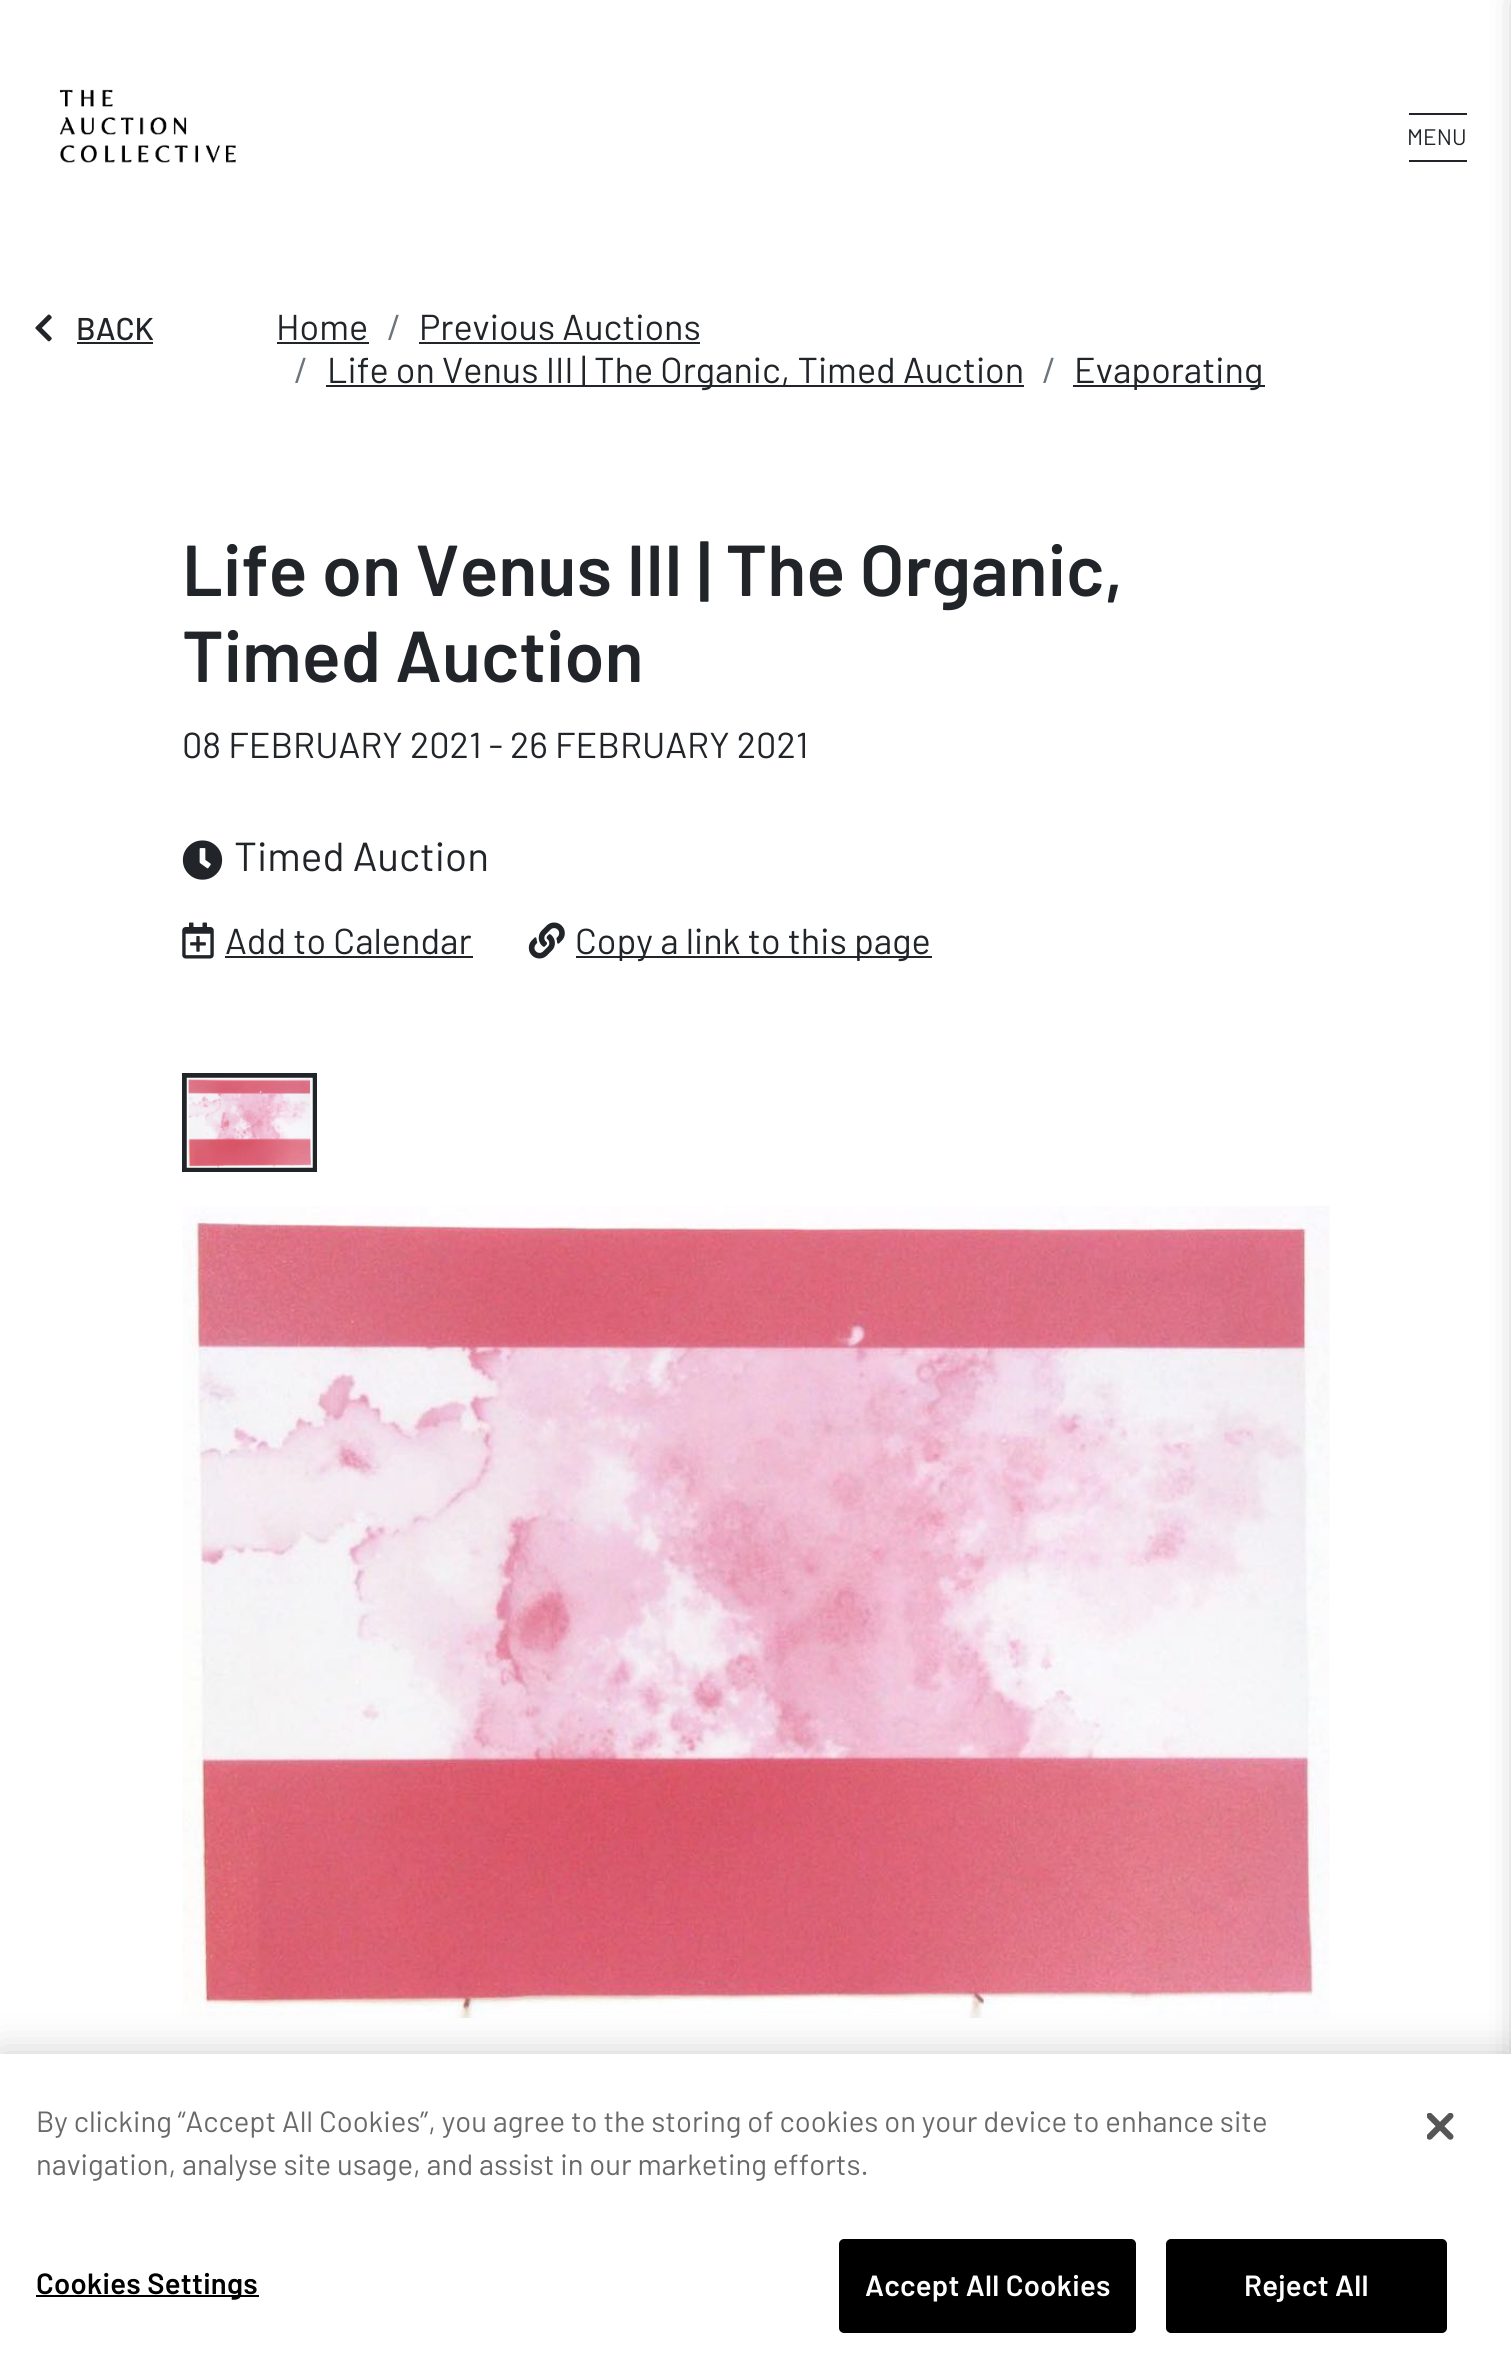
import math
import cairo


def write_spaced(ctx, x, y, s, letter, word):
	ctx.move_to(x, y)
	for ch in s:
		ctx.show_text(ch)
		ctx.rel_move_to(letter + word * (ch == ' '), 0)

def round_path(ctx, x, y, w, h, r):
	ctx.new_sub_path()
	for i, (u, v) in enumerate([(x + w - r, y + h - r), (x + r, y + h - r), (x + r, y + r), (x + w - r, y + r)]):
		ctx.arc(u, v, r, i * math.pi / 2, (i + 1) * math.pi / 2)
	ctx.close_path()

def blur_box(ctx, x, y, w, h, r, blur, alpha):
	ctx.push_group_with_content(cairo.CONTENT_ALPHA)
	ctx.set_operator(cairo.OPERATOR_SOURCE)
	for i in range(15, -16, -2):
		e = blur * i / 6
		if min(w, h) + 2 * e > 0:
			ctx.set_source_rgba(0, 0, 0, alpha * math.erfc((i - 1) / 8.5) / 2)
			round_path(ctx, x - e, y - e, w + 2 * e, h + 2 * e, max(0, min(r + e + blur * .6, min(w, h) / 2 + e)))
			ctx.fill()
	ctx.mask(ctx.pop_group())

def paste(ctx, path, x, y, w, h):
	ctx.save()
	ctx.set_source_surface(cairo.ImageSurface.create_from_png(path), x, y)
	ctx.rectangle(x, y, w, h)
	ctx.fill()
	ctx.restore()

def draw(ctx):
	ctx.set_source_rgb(1, 1, 1)
	ctx.paint()
	paste(ctx, 'media/1.png', 59, 89, 177, 74)
	ctx.select_font_face('Barlow')
	ctx.set_font_size(22.5)
	ctx.set_source_rgb(0.129, 0.145, 0.161)
	ctx.move_to(1407, 145)
	ctx.show_text('MENU')
	ctx.rectangle(1409, 113, 58, 2)
	ctx.fill()
	ctx.rectangle(1409, 160, 58, 2)
	ctx.fill()
	ctx.set_source_rgb(0, 0, 0)
	blur_box(ctx, 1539, 0, 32, 2376, 0, 20, 1)
	paste(ctx, 'media/2.png', 35, 314, 17, 28)
	ctx.select_font_face('Barlow Medium')
	ctx.set_font_size(31.5)
	ctx.set_source_rgb(0.129, 0.145, 0.161)
	ctx.move_to(76, 340)
	ctx.show_text('BACK')
	ctx.rectangle(77, 342, 76, 2)
	ctx.fill()
	ctx.select_font_face('Barlow')
	ctx.set_font_size(36)
	ctx.move_to(276, 340)
	ctx.show_text('Home')
	ctx.rectangle(277, 342, 92, 2)
	ctx.fill()
	ctx.set_source_rgb(0.424, 0.459, 0.49)
	ctx.move_to(387, 340)
	ctx.show_text('/')
	ctx.set_source_rgb(0.129, 0.145, 0.161)
	ctx.move_to(419, 340)
	ctx.show_text('Previous Auctions')
	ctx.rectangle(419, 342, 281, 2)
	ctx.fill()
	ctx.set_source_rgb(0.424, 0.459, 0.49)
	ctx.move_to(294, 383)
	ctx.show_text('/')
	ctx.set_source_rgb(0.129, 0.145, 0.161)
	ctx.rectangle(326, 385, 698, 2)
	ctx.fill()
	ctx.move_to(327, 383)
	ctx.show_text('Life on Venus III | The Organic, Timed Auction')
	ctx.set_source_rgb(0.424, 0.459, 0.49)
	ctx.move_to(1042, 383)
	ctx.show_text('/')
	ctx.set_source_rgb(0.129, 0.145, 0.161)
	ctx.rectangle(1073, 385, 192, 2)
	ctx.fill()
	ctx.move_to(1074, 383)
	ctx.show_text('Evaporating')
	ctx.select_font_face('Barlow SemiBold')
	ctx.set_font_size(72)
	ctx.move_to(182, 596)
	ctx.show_text('Life on Venus III | The Organic,')
	ctx.move_to(182, 682)
	ctx.show_text('Timed Auction')
	ctx.select_font_face('Barlow')
	ctx.set_font_size(36)
	ctx.move_to(182, 758)
	ctx.show_text('08 FEBRUARY 2021 - 26 FEBRUARY 2021')
	paste(ctx, 'media/3.png', 182, 840, 41, 40)
	ctx.set_font_size(40.5)
	ctx.move_to(234, 871)
	ctx.show_text('Timed Auction')
	paste(ctx, 'media/4.png', 182, 922, 32, 37)
	ctx.set_font_size(36)
	ctx.move_to(225, 954)
	ctx.show_text('Add to Calendar')
	ctx.rectangle(225, 956, 248, 2)
	ctx.fill()
	paste(ctx, 'media/5.png', 528, 922, 37, 37)
	ctx.rectangle(576, 956, 356, 2)
	ctx.fill()
	ctx.move_to(575, 954)
	ctx.show_text('Copy a link to this page')
	ctx.rectangle(184.5, 1075.5, 130, 94)
	ctx.set_line_width(5)
	ctx.stroke()
	paste(ctx, 'media/6.png', 186, 1077, 127, 91)
	paste(ctx, 'media/7.png', 182, 1206, 1148, 812)
	ctx.set_source_rgb(0, 0, 0)
	blur_box(ctx, 0, 2054, 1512, 322, 0, 20, 0.2)
	ctx.set_source_rgb(1, 1, 1)
	ctx.rectangle(0, 2054, 1511, 322)
	ctx.fill()
	ctx.set_font_size(29.25)
	ctx.set_source_rgb(0.412, 0.412, 0.412)
	ctx.move_to(36, 2132)
	ctx.show_text('By clicking “Accept All Cookies”, you agree to the storing of cookies on your device to enhance site')
	ctx.move_to(36, 2175)
	ctx.show_text('navigation, analyse site usage, and assist in our marketing efforts.')
	ctx.set_source_rgb(0, 0, 0)
	ctx.rectangle(36, 2295, 223, 2)
	ctx.fill()
	ctx.select_font_face('Barlow SemiBold')
	write_spaced(ctx, 36, 2294, 'Cookies Settings', 0.25, 0)
	round_path(ctx, 840, 2240, 295, 92, 4)
	ctx.fill_preserve()
	ctx.set_line_width(2)
	ctx.stroke()
	ctx.set_source_rgb(1, 1, 1)
	write_spaced(ctx, 865, 2296, 'Accept All Cookies', 0.25, 0)
	ctx.set_source_rgb(0, 0, 0)
	round_path(ctx, 1167, 2240, 279, 92, 4)
	ctx.fill_preserve()
	ctx.stroke()
	ctx.set_source_rgb(1, 1, 1)
	write_spaced(ctx, 1244, 2296, 'Reject All', 0.25, 0)
	paste(ctx, 'media/8.png', 1427, 2113, 27, 27)


surface = cairo.ImageSurface(cairo.FORMAT_RGB24, 1511, 2376)
ctx = cairo.Context(surface)
options = cairo.FontOptions()
options.set_hint_metrics(cairo.HINT_METRICS_OFF)
options.set_hint_style(cairo.HINT_STYLE_NONE)
ctx.set_font_options(options)
ctx.set_miter_limit(4)
draw(ctx)
surface.write_to_png('image.png')
